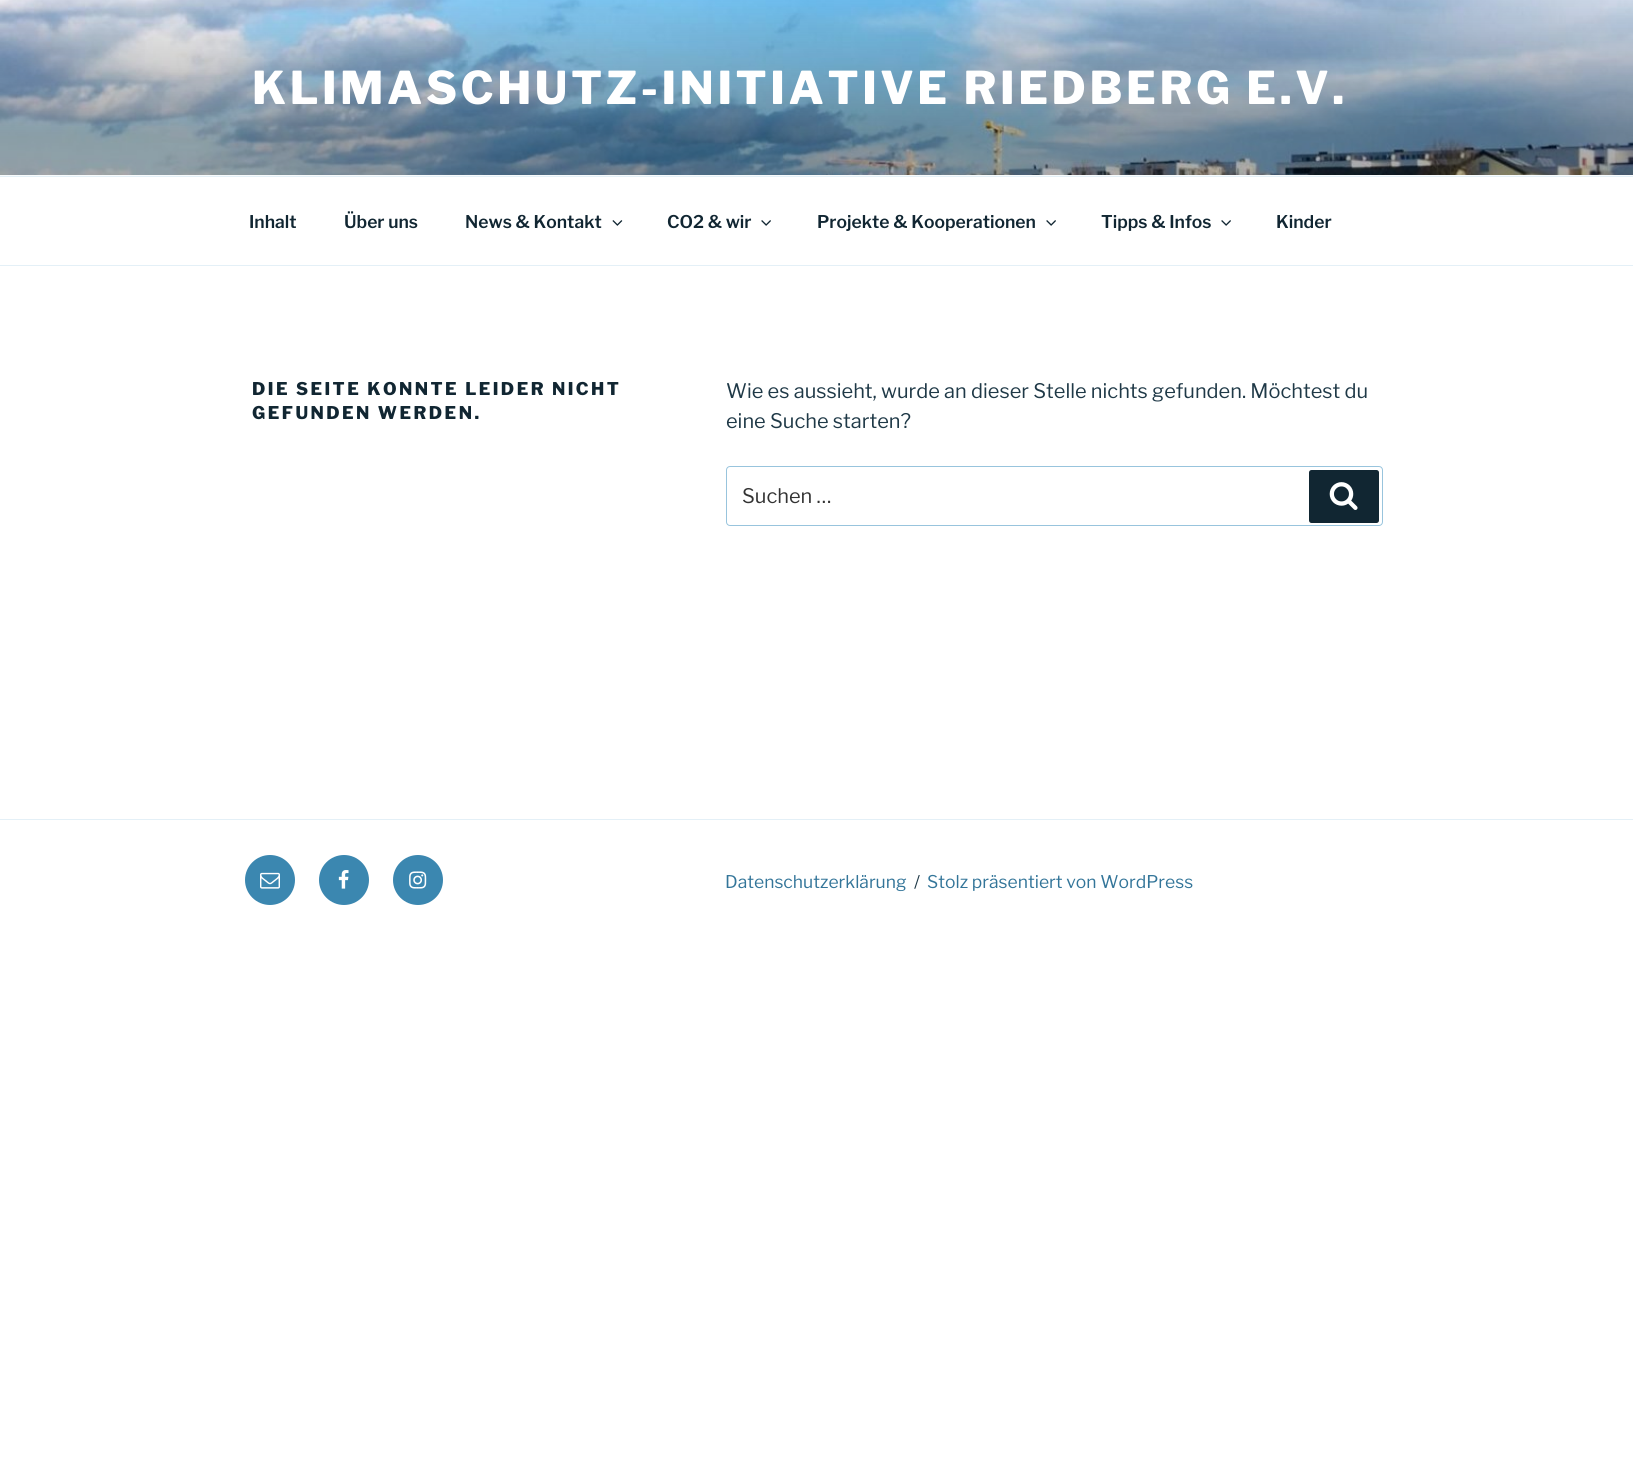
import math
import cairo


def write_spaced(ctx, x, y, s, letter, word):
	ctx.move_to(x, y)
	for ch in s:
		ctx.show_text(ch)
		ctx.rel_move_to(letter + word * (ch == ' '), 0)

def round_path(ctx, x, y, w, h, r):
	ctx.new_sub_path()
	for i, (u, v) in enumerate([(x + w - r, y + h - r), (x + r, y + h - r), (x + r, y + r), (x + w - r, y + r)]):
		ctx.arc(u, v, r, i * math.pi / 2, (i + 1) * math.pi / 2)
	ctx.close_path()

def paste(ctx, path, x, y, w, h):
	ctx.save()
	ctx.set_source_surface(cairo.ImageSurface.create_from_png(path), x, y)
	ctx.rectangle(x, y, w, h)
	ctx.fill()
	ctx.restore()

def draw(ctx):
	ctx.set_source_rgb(1, 1, 1)
	ctx.paint()
	ctx.set_source_rgb(0.969, 0.984, 0.988)
	ctx.rectangle(0, 175, 1633, 1)
	ctx.fill()
	paste(ctx, 'media/1.png', 0, 0, 1633, 175)
	ctx.select_font_face('Libre Franklin Thin')
	ctx.set_font_size(45)
	ctx.set_source_rgb(1, 1, 1)
	write_spaced(ctx, 252, 104, 'KLIMASCHUTZ-INITIATIVE RIEDBERG E.V.', 3.6, 0)
	ctx.set_source_rgb(0.894, 0.941, 0.965)
	ctx.rectangle(0, 176, 1633, 1)
	ctx.fill()
	ctx.rectangle(0, 265, 1633, 1)
	ctx.fill()
	ctx.select_font_face('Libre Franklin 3 Thin')
	ctx.set_font_size(17.5)
	ctx.set_source_rgb(0.067, 0.149, 0.196)
	for x, y, s in [
		(249, 228, 'Inhalt'),
		(344, 228, 'Über uns'),
		(465, 228, 'News & Kontakt'),
	]:
		ctx.move_to(x, y)
		ctx.show_text(s)
	paste(ctx, 'media/2.png', 612, 220, 11, 6)
	ctx.move_to(667, 228)
	ctx.show_text('CO2 & wir')
	paste(ctx, 'media/3.png', 761, 220, 10, 6)
	ctx.move_to(817, 228)
	ctx.show_text('Projekte & Kooperationen')
	paste(ctx, 'media/3.png', 1046, 220, 10, 6)
	ctx.move_to(1101, 228)
	ctx.show_text('Tipps & Infos')
	paste(ctx, 'media/3.png', 1221, 220, 10, 6)
	ctx.move_to(1276, 228)
	ctx.show_text('Kinder')
	ctx.select_font_face('Libre Franklin Thin')
	write_spaced(ctx, 252, 395, 'DIE SEITE KONNTE LEIDER NICHT', 2.45, 0)
	write_spaced(ctx, 252, 419, 'GEFUNDEN WERDEN.', 2.45, 0)
	ctx.select_font_face('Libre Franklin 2 Thin')
	ctx.set_font_size(20)
	ctx.set_source_rgb(0.122, 0.224, 0.278)
	ctx.move_to(726, 398)
	ctx.show_text('Wie es aussieht, wurde an dieser Stelle nichts gefunden. Möchtest du')
	ctx.move_to(726, 428)
	ctx.show_text('eine Suche starten?')
	round_path(ctx, 726.5, 466.5, 656, 59, 3.5)
	ctx.set_source_rgb(0.596, 0.769, 0.867)
	ctx.set_line_width(1)
	ctx.stroke()
	ctx.set_source_rgb(0.2, 0.2, 0.2)
	ctx.move_to(742, 503)
	ctx.show_text('Suchen …')
	ctx.set_source_rgb(0.067, 0.149, 0.196)
	round_path(ctx, 1309, 470, 70, 53, 2.5)
	ctx.fill()
	paste(ctx, 'media/4.png', 1329, 482, 29, 28)
	ctx.set_source_rgb(0.894, 0.941, 0.965)
	ctx.rectangle(0, 819, 1633, 1)
	ctx.fill()
	ctx.set_source_rgb(0.231, 0.529, 0.69)
	ctx.arc(270, 880, 25, 0, 2 * math.pi)
	ctx.fill()
	paste(ctx, 'media/5.png', 260, 872, 20, 17)
	ctx.arc(344, 880, 25, 0, 2 * math.pi)
	ctx.fill()
	paste(ctx, 'media/6.png', 338, 870, 11, 19)
	ctx.arc(418, 880, 25, 0, 2 * math.pi)
	ctx.fill()
	paste(ctx, 'media/7.png', 409, 871, 18, 18)
	ctx.set_font_size(17.5)
	ctx.set_source_rgb(0.2, 0.459, 0.6)
	ctx.move_to(725, 888)
	ctx.show_text('Datenschutzerklärung')
	ctx.set_source_rgb(0.122, 0.224, 0.278)
	ctx.move_to(914, 888)
	ctx.show_text('/')
	ctx.set_source_rgb(0.2, 0.459, 0.6)
	ctx.move_to(927, 888)
	ctx.show_text('Stolz präsentiert von WordPress')


surface = cairo.ImageSurface(cairo.FORMAT_RGB24, 1633, 1466)
ctx = cairo.Context(surface)
options = cairo.FontOptions()
options.set_hint_metrics(cairo.HINT_METRICS_OFF)
options.set_hint_style(cairo.HINT_STYLE_NONE)
ctx.set_font_options(options)
ctx.set_miter_limit(4)
draw(ctx)
surface.write_to_png('image.png')
